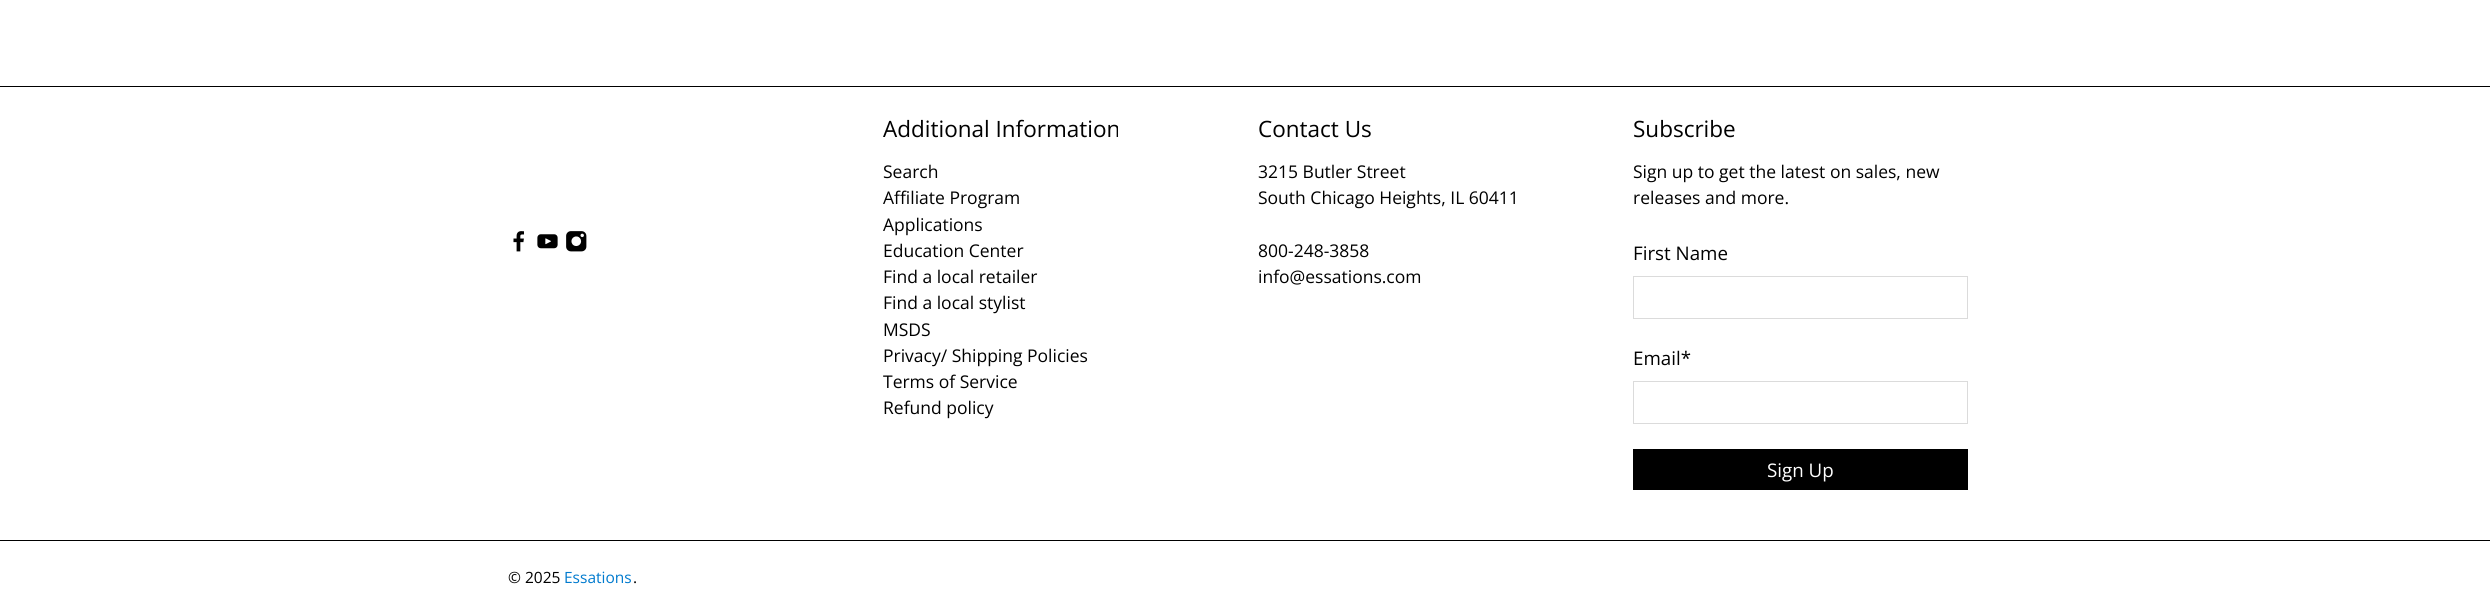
import math
import cairo


def paste(ctx, path, x, y, w, h):
	ctx.save()
	ctx.set_source_surface(cairo.ImageSurface.create_from_png(path), x, y)
	ctx.rectangle(x, y, w, h)
	ctx.fill()
	ctx.restore()

def draw(ctx):
	ctx.set_source_rgb(1, 1, 1)
	ctx.paint()
	ctx.set_source_rgb(0, 0, 0)
	ctx.rectangle(0, 86, 2490, 1)
	ctx.fill()
	ctx.rectangle(0, 540, 2490, 1)
	ctx.fill()
	paste(ctx, 'media/1.png', 513, 231, 11, 21)
	paste(ctx, 'media/2.png', 537, 234, 21, 15)
	paste(ctx, 'media/3.png', 566, 231, 21, 21)
	ctx.select_font_face('Open Sans')
	ctx.set_font_size(22.5)
	ctx.move_to(883, 137)
	ctx.show_text('Additional Information')
	ctx.set_font_size(17.5)
	for x, y, s in [
		(883, 178, 'Search'),
		(883, 204, 'Affiliate Program'),
		(883, 231, 'Applications'),
		(883, 257, 'Education Center'),
		(883, 283, 'Find a local retailer'),
		(883, 309, 'Find a local stylist'),
		(883, 336, 'MSDS'),
		(883, 362, 'Privacy/ Shipping Policies'),
		(883, 388, 'Terms of Service'),
		(883, 414, 'Refund policy'),
	]:
		ctx.move_to(x, y)
		ctx.show_text(s)
	ctx.set_font_size(22.5)
	ctx.move_to(1258, 137)
	ctx.show_text('Contact Us')
	ctx.set_font_size(17.5)
	for x, y, s in [
		(1258, 178, '3215 Butler Street'),
		(1258, 204, 'South Chicago Heights, IL 60411'),
		(1258, 257, '800-248-3858'),
		(1258, 283, 'info@essations.com'),
	]:
		ctx.move_to(x, y)
		ctx.show_text(s)
	ctx.set_font_size(22.5)
	ctx.move_to(1633, 137)
	ctx.show_text('Subscribe')
	ctx.set_font_size(17.5)
	ctx.move_to(1633, 178)
	ctx.show_text('Sign up to get the latest on sales, new')
	ctx.move_to(1633, 204)
	ctx.show_text('releases and more.')
	ctx.set_font_size(18.75)
	ctx.move_to(1633, 260)
	ctx.show_text('First Name')
	ctx.rectangle(1633.5, 276.5, 334, 42)
	ctx.set_source_rgb(0.859, 0.859, 0.859)
	ctx.set_line_width(1)
	ctx.stroke()
	ctx.set_source_rgb(0, 0, 0)
	ctx.move_to(1633, 365)
	ctx.show_text('Email*')
	ctx.rectangle(1633.5, 381.5, 334, 42)
	ctx.set_source_rgb(0.859, 0.859, 0.859)
	ctx.stroke()
	ctx.set_source_rgb(0, 0, 0)
	ctx.rectangle(1633, 449, 335, 41)
	ctx.fill()
	ctx.set_source_rgb(1, 1, 1)
	ctx.move_to(1767, 477)
	ctx.show_text('Sign Up')
	ctx.set_font_size(15.5)
	ctx.set_source_rgb(0, 0, 0)
	ctx.move_to(508, 583)
	ctx.show_text('© 2025')
	ctx.set_source_rgb(0, 0.478, 0.808)
	ctx.move_to(564, 583)
	ctx.show_text('Essations')
	ctx.set_source_rgb(0, 0, 0)
	ctx.move_to(633, 583)
	ctx.show_text('.')


surface = cairo.ImageSurface(cairo.FORMAT_RGB24, 2490, 615)
ctx = cairo.Context(surface)
options = cairo.FontOptions()
options.set_hint_metrics(cairo.HINT_METRICS_OFF)
options.set_hint_style(cairo.HINT_STYLE_NONE)
ctx.set_font_options(options)
ctx.set_miter_limit(4)
draw(ctx)
surface.write_to_png('image.png')
